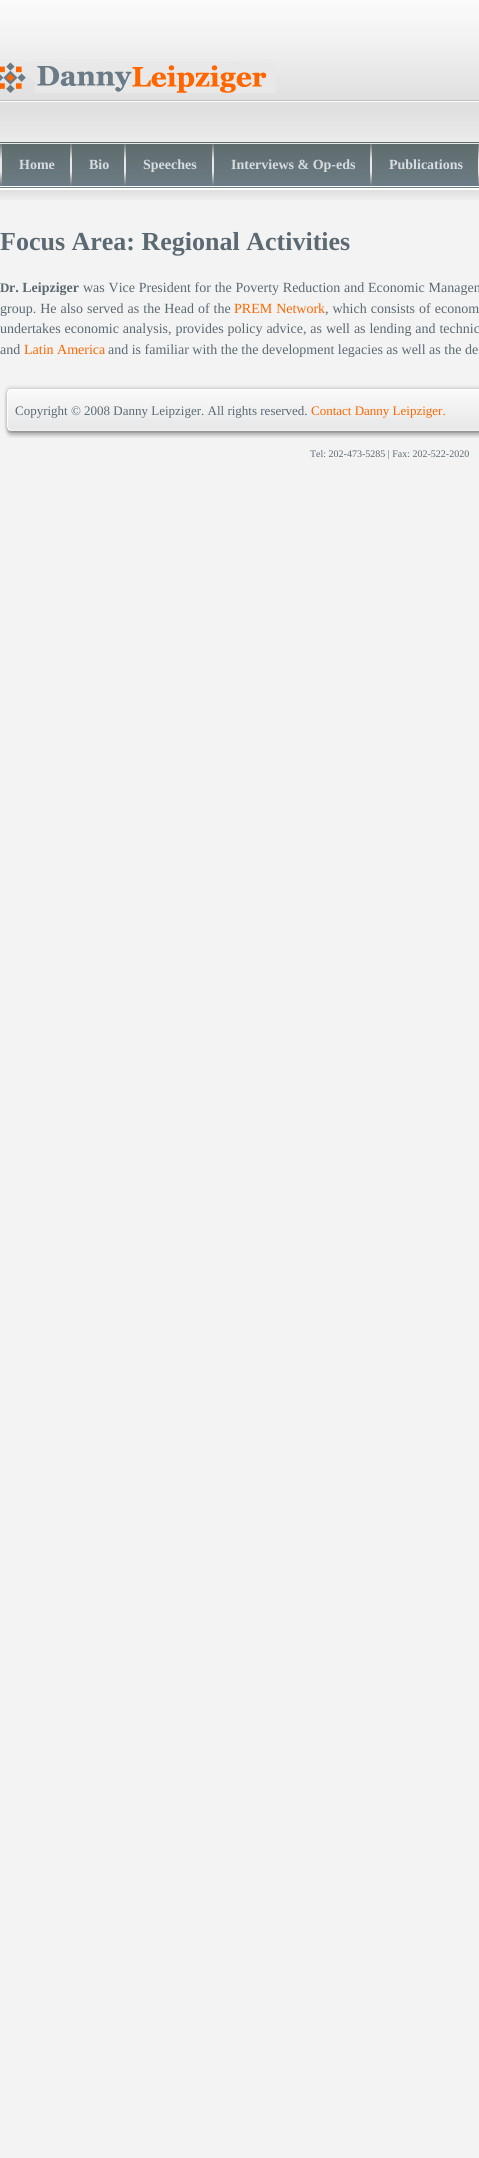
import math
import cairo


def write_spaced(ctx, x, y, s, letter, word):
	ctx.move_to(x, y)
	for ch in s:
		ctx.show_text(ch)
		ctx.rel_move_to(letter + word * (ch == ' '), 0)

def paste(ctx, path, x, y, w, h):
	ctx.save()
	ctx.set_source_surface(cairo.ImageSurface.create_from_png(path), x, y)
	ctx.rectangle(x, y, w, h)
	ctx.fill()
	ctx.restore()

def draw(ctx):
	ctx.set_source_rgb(0.953, 0.953, 0.953)
	ctx.paint()
	paste(ctx, 'media/1.png', 0, 0, 479, 200)
	paste(ctx, 'media/2.png', 0, 62, 276, 31)
	paste(ctx, 'media/3.png', 0, 144, 2, 42)
	ctx.set_source_rgb(0.416, 0.478, 0.525)
	ctx.rectangle(2, 182, 476, 4)
	ctx.fill()
	paste(ctx, 'media/4.png', 2, 144, 476, 38)
	paste(ctx, 'media/3.png', 70, 144, 2, 42)
	ctx.select_font_face('Liberation Serif', cairo.FONT_SLANT_NORMAL, cairo.FONT_WEIGHT_BOLD)
	ctx.set_font_size(14)
	ctx.set_source_rgb(0.847, 0.863, 0.878)
	ctx.move_to(19, 169)
	ctx.show_text('Home')
	paste(ctx, 'media/3.png', 124, 144, 2, 42)
	ctx.move_to(89, 169)
	ctx.show_text('Bio')
	paste(ctx, 'media/3.png', 212, 144, 2, 42)
	ctx.move_to(143, 169)
	ctx.show_text('Speeches')
	paste(ctx, 'media/3.png', 370, 144, 2, 42)
	ctx.move_to(231, 169)
	ctx.show_text('Interviews & Op-eds')
	paste(ctx, 'media/5.png', 478, 144, 1, 42)
	ctx.move_to(389, 169)
	ctx.show_text('Publications')
	ctx.set_font_size(26)
	ctx.set_source_rgb(0.357, 0.412, 0.451)
	ctx.move_to(0, 250)
	ctx.show_text('Focus Area: Regional Activities')
	ctx.set_font_size(13)
	ctx.move_to(0, 292)
	ctx.show_text('D')
	ctx.set_font_size(14)
	ctx.move_to(9, 292)
	ctx.show_text('r. Leipziger')
	ctx.select_font_face('Liberation Serif')
	write_spaced(ctx, 83, 292, 'was Vice President for the Poverty Reduction and Economic Managem', 0, 0.25)
	write_spaced(ctx, 0, 313, 'group. He also served as the Head of the', 0, 0.5)
	ctx.set_source_rgb(1, 0.4, 0)
	write_spaced(ctx, 234, 313, 'PREM Network', 0, 0.5)
	ctx.set_source_rgb(0.357, 0.412, 0.451)
	write_spaced(ctx, 325, 313, ', which consists of econom', 0, 0.5)
	write_spaced(ctx, 0, 333, 'undertakes economic analysis, provides policy advice, as well as lending and technic', 0, 0.4)
	ctx.move_to(0, 354)
	ctx.show_text('and')
	ctx.set_source_rgb(1, 0.4, 0)
	ctx.move_to(24, 354)
	ctx.show_text('Latin America')
	ctx.set_source_rgb(0.357, 0.412, 0.451)
	ctx.move_to(108, 354)
	ctx.show_text('and is familiar with the the development legacies as well as the de')
	paste(ctx, 'media/6.png', 15, 385, 464, 53)
	paste(ctx, 'media/7.png', 4, 385, 11, 53)
	ctx.set_font_size(13)
	ctx.move_to(15, 415)
	ctx.show_text('Copyright © 2008 Danny Leipziger. All rights reserved.')
	ctx.set_source_rgb(1, 0.4, 0)
	ctx.move_to(311, 415)
	ctx.show_text('Contact Danny Leipziger.')
	ctx.set_font_size(10)
	ctx.set_source_rgb(0.357, 0.412, 0.451)
	ctx.move_to(310, 457)
	ctx.show_text('Tel: 202-473-5285 | Fax: 202-522-2020')


surface = cairo.ImageSurface(cairo.FORMAT_RGB24, 479, 2158)
ctx = cairo.Context(surface)
options = cairo.FontOptions()
options.set_hint_metrics(cairo.HINT_METRICS_OFF)
options.set_hint_style(cairo.HINT_STYLE_NONE)
ctx.set_font_options(options)
ctx.set_miter_limit(4)
draw(ctx)
surface.write_to_png('image.png')
